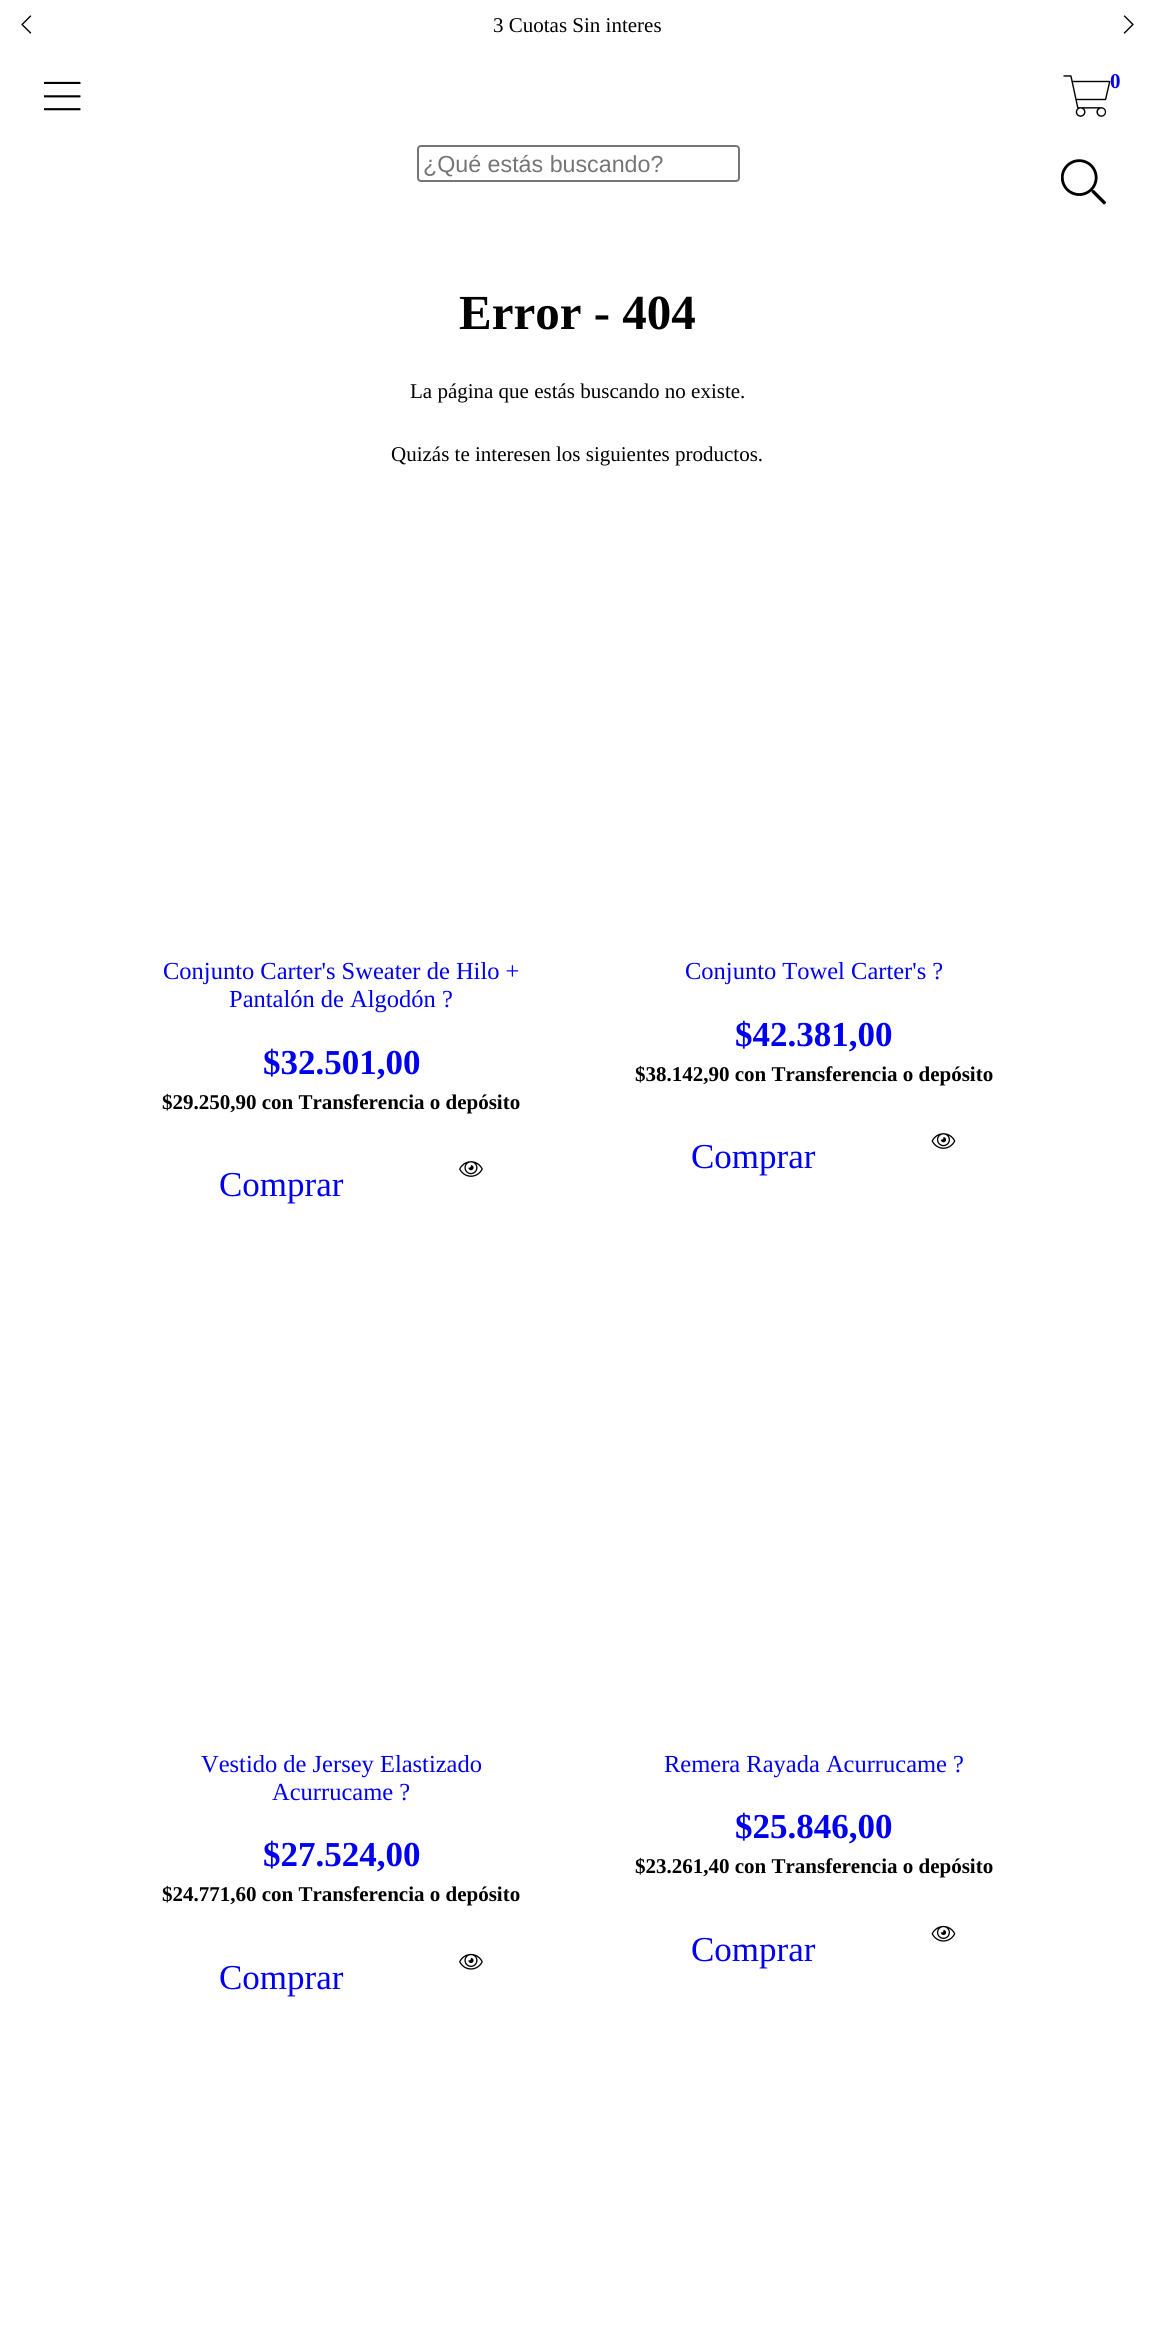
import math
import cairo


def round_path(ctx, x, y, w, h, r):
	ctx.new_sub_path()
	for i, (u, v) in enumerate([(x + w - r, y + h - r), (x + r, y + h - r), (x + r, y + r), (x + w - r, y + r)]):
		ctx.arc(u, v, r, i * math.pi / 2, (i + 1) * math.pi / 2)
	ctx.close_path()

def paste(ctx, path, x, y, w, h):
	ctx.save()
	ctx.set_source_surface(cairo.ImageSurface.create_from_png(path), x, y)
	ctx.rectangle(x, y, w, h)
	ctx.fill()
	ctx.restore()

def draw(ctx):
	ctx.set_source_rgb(1, 1, 1)
	ctx.paint()
	paste(ctx, 'media/1.png', 21, 15, 11, 19)
	ctx.select_font_face('Liberation Serif')
	ctx.set_font_size(21)
	ctx.set_source_rgb(0, 0, 0)
	ctx.move_to(493, 32)
	ctx.show_text('3 Cuotas Sin interes')
	paste(ctx, 'media/2.png', 1123, 15, 11, 19)
	paste(ctx, 'media/3.png', 44, 81, 37, 30)
	paste(ctx, 'media/4.png', 1063, 75, 48, 42)
	ctx.select_font_face('Liberation Serif', cairo.FONT_SLANT_NORMAL, cairo.FONT_WEIGHT_BOLD)
	ctx.set_source_rgb(0, 0, 0.933)
	ctx.move_to(1110, 88)
	ctx.show_text('0')
	round_path(ctx, 418, 146, 321, 35, 3)
	ctx.set_source_rgb(0.463, 0.463, 0.463)
	ctx.stroke()
	ctx.select_font_face('Liberation Sans')
	ctx.set_font_size(23.25)
	ctx.set_source_rgb(0.459, 0.459, 0.459)
	ctx.move_to(423, 172)
	ctx.show_text('¿Qué estás buscando?')
	paste(ctx, 'media/5.png', 1061, 159, 45, 46)
	ctx.select_font_face('Liberation Serif', cairo.FONT_SLANT_NORMAL, cairo.FONT_WEIGHT_BOLD)
	ctx.set_font_size(49)
	ctx.set_source_rgb(0, 0, 0)
	ctx.move_to(459, 329)
	ctx.show_text('Error - 404')
	ctx.select_font_face('Liberation Serif')
	ctx.set_font_size(21)
	ctx.move_to(410, 398)
	ctx.show_text('La página que estás buscando no existe.')
	ctx.move_to(391, 461)
	ctx.show_text('Quizás te interesen los siguientes productos.')
	ctx.set_font_size(24.5)
	ctx.set_source_rgb(0, 0, 0.933)
	ctx.move_to(163, 979)
	ctx.show_text('Conjunto Carter\'s Sweater de Hilo +')
	ctx.move_to(229, 1007)
	ctx.show_text('Pantalón de Algodón ?')
	ctx.select_font_face('Liberation Serif', cairo.FONT_SLANT_NORMAL, cairo.FONT_WEIGHT_BOLD)
	ctx.set_font_size(35)
	ctx.move_to(263, 1074)
	ctx.show_text('$32.501,00')
	ctx.set_font_size(21)
	ctx.set_source_rgb(0, 0, 0)
	ctx.move_to(162, 1109)
	ctx.show_text('$29.250,90 con Transferencia o depósito')
	paste(ctx, 'media/6.png', 459, 1161, 24, 16)
	ctx.select_font_face('Liberation Serif')
	ctx.set_font_size(35)
	ctx.set_source_rgb(0, 0, 0.933)
	ctx.move_to(219, 1196)
	ctx.show_text('Comprar')
	ctx.set_font_size(24.5)
	ctx.move_to(685, 979)
	ctx.show_text('Conjunto Towel Carter\'s ?')
	ctx.select_font_face('Liberation Serif', cairo.FONT_SLANT_NORMAL, cairo.FONT_WEIGHT_BOLD)
	ctx.set_font_size(35)
	ctx.move_to(735, 1046)
	ctx.show_text('$42.381,00')
	ctx.set_font_size(21)
	ctx.set_source_rgb(0, 0, 0)
	ctx.move_to(635, 1081)
	ctx.show_text('$38.142,90 con Transferencia o depósito')
	paste(ctx, 'media/7.png', 931, 1133, 25, 16)
	ctx.select_font_face('Liberation Serif')
	ctx.set_font_size(35)
	ctx.set_source_rgb(0, 0, 0.933)
	ctx.move_to(691, 1168)
	ctx.show_text('Comprar')
	ctx.set_font_size(24.5)
	ctx.move_to(201, 1772)
	ctx.show_text('Vestido de Jersey Elastizado')
	ctx.move_to(272, 1800)
	ctx.show_text('Acurrucame ?')
	ctx.select_font_face('Liberation Serif', cairo.FONT_SLANT_NORMAL, cairo.FONT_WEIGHT_BOLD)
	ctx.set_font_size(35)
	ctx.move_to(263, 1866)
	ctx.show_text('$27.524,00')
	ctx.set_font_size(21)
	ctx.set_source_rgb(0, 0, 0)
	ctx.move_to(162, 1901)
	ctx.show_text('$24.771,60 con Transferencia o depósito')
	paste(ctx, 'media/8.png', 459, 1953, 24, 17)
	ctx.select_font_face('Liberation Serif')
	ctx.set_font_size(35)
	ctx.set_source_rgb(0, 0, 0.933)
	ctx.move_to(219, 1989)
	ctx.show_text('Comprar')
	ctx.set_font_size(24.5)
	ctx.move_to(664, 1772)
	ctx.show_text('Remera Rayada Acurrucame ?')
	ctx.select_font_face('Liberation Serif', cairo.FONT_SLANT_NORMAL, cairo.FONT_WEIGHT_BOLD)
	ctx.set_font_size(35)
	ctx.move_to(735, 1838)
	ctx.show_text('$25.846,00')
	ctx.set_font_size(21)
	ctx.set_source_rgb(0, 0, 0)
	ctx.move_to(635, 1873)
	ctx.show_text('$23.261,40 con Transferencia o depósito')
	paste(ctx, 'media/9.png', 931, 1925, 25, 17)
	ctx.select_font_face('Liberation Serif')
	ctx.set_font_size(35)
	ctx.set_source_rgb(0, 0, 0.933)
	ctx.move_to(691, 1961)
	ctx.show_text('Comprar')


surface = cairo.ImageSurface(cairo.FORMAT_RGB24, 1155, 2335)
ctx = cairo.Context(surface)
options = cairo.FontOptions()
options.set_hint_metrics(cairo.HINT_METRICS_OFF)
options.set_hint_style(cairo.HINT_STYLE_NONE)
ctx.set_font_options(options)
ctx.set_miter_limit(4)
draw(ctx)
surface.write_to_png('image.png')
